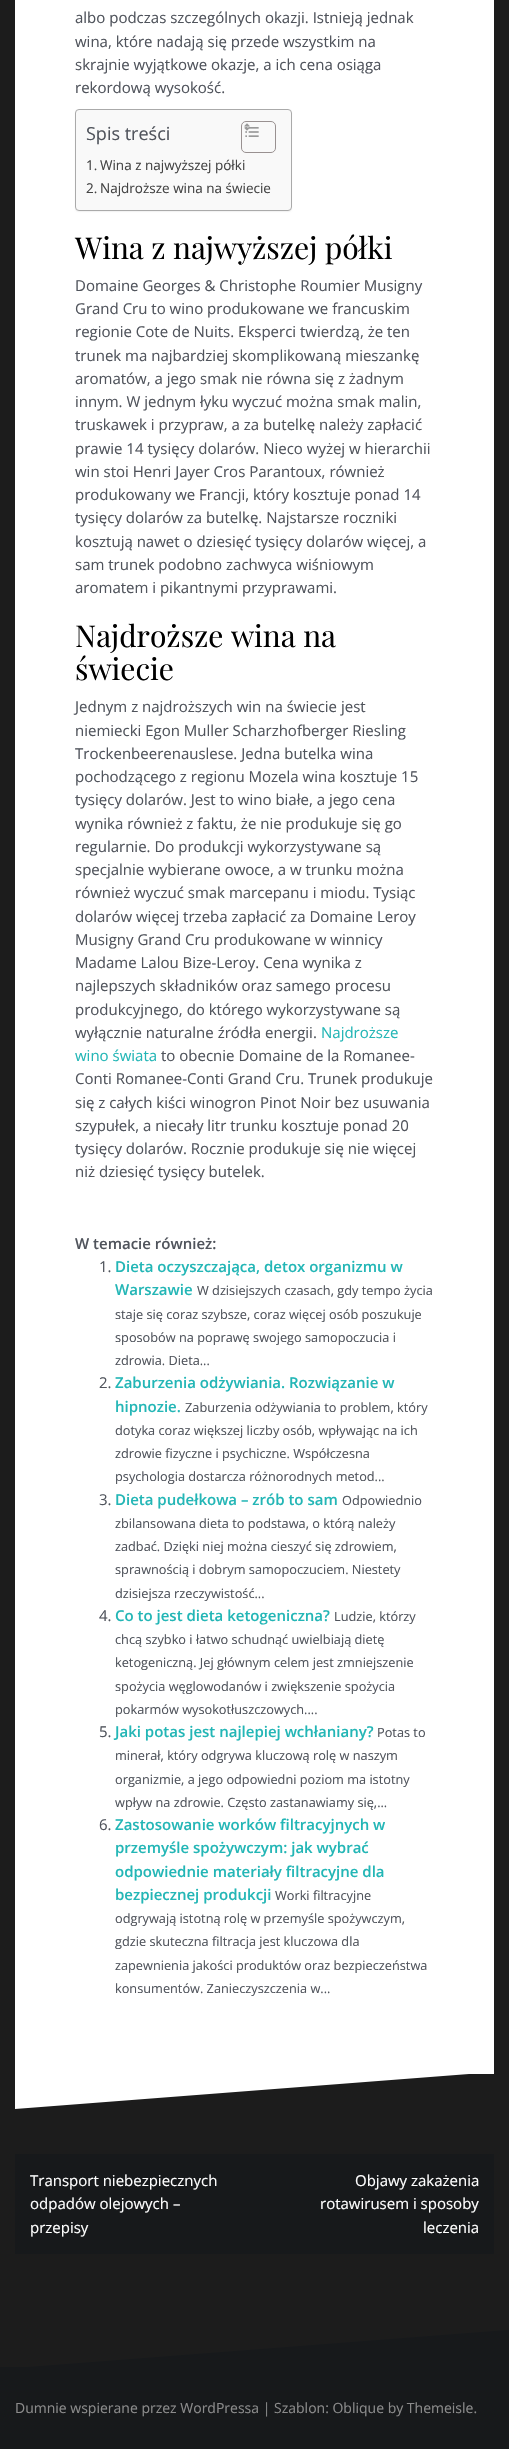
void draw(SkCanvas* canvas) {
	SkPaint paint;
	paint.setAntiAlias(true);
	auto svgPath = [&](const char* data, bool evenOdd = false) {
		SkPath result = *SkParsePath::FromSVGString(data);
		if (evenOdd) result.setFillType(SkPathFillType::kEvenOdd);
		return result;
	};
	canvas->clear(0xff1c1c1c);
	paint.setColor(0xffffffff);
	canvas->drawRect(SkRect::MakeXYWH(15, 0, 479, 2074), paint);
	SkFont f1(fontMgr->matchFamilyStyle("Open Sans", SkFontStyle::Normal()), 15);
	f1.setSubpixel(true);
	paint.setColor(0xff50545c);
	canvas->drawString("albo podczas szczególnych okazji. Istnieją jednak", 75, 23, f1, paint);
	canvas->drawString("wina, które nadają się przede wszystkim na", 75, 47, f1, paint);
	canvas->drawString("skrajnie wyjątkowe okazje, a ich cena osiąga", 75, 70, f1, paint);
	canvas->drawString("rekordową wysokość.", 75, 93, f1, paint);
	paint.setColor(0x0d000000);
	paint.setMaskFilter(SkMaskFilter::MakeBlur(kNormal_SkBlurStyle, 0.5));
	canvas->drawRoundRect(SkRect::MakeXYWH(75, 110, 217, 102), 4, 4, paint);
	paint.setMaskFilter(nullptr);
	paint.setColor(0xfff9f9f9);
	canvas->drawRoundRect(SkRect::MakeXYWH(75.5, 109.5, 216, 101), 3.5, 3.5, paint);
	paint.setStroke(true);
	paint.setStrokeWidth(1);
	paint.setColor(0xffaaaaaa);
	canvas->drawRoundRect(SkRect::MakeXYWH(75.5, 109.5, 216, 101), 3.5, 3.5, paint);
	SkFont f2(fontMgr->matchFamilyStyle("Open Sans", SkFontStyle::Normal()), 18);
	f2.setSubpixel(true);
	paint.setStroke(false);
	paint.setColor(0xff50545c);
	canvas->drawString("Spis treści", 86, 140, f2, paint);
	paint.setStroke(true);
	paint.setColor(0xff999191);
	canvas->drawRoundRect(SkRect::MakeXYWH(241.5, 121.5, 34, 31), 4.5, 4.5, paint);
	canvas->drawImageRect(SkImages::DeferredFromEncodedData(SkData::MakeFromFileName("img2.png")), SkRect::MakeXYWH(245, 127, 14, 10), SkSamplingOptions());
	canvas->drawImageRect(SkImages::DeferredFromEncodedData(SkData::MakeFromFileName("img1.png")), SkRect::MakeXYWH(244, 123, 6, 8), SkSamplingOptions());
	SkFont f3(fontMgr->matchFamilyStyle("Open Sans", SkFontStyle::Normal()), 13.5);
	f3.setSubpixel(true);
	paint.setStroke(false);
	paint.setColor(0xff444444);
	canvas->drawString("1.", 86, 170, f3, paint);
	canvas->drawString("Wina z najwyższej półki", 100, 170, f3, paint);
	canvas->drawString("2.", 86, 193, f3, paint);
	canvas->drawString("Najdroższe wina na świecie", 100, 193, f3, paint);
	SkFont f4(fontMgr->matchFamilyStyle("Playfair Display", SkFontStyle::Normal()), 30);
	f4.setSubpixel(true);
	paint.setColor(0xff000000);
	canvas->drawString("Wina z najwyższej półki", 75, 259, f4, paint);
	paint.setColor(0xff50545c);
	canvas->drawString("Domaine Georges & Christophe Roumier Musigny", 75, 291, f1, paint);
	canvas->drawString("Grand Cru to wino produkowane we francuskim", 75, 314, f1, paint);
	canvas->drawString("regionie Cote de Nuits. Eksperci twierdzą, że ten", 75, 337, f1, paint);
	canvas->drawString("trunek ma najbardziej skomplikowaną mieszankę", 75, 361, f1, paint);
	canvas->drawString("aromatów, a jego smak nie równa się z żadnym", 75, 384, f1, paint);
	canvas->drawString("innym. W jednym łyku wyczuć można smak malin,", 75, 407, f1, paint);
	canvas->drawString("truskawek i przypraw, a za butelkę należy zapłacić", 75, 430, f1, paint);
	canvas->drawString("prawie 14 tysięcy dolarów. Nieco wyżej w hierarchii", 75, 454, f1, paint);
	canvas->drawString("win stoi Henri Jayer Cros Parantoux, również", 75, 477, f1, paint);
	canvas->drawString("produkowany we Francji, który kosztuje ponad 14", 75, 500, f1, paint);
	canvas->drawString("tysięcy dolarów za butelkę. Najstarsze roczniki", 75, 523, f1, paint);
	canvas->drawString("kosztują nawet o dziesięć tysięcy dolarów więcej, a", 75, 547, f1, paint);
	canvas->drawString("sam trunek podobno zachwyca wiśniowym", 75, 570, f1, paint);
	canvas->drawString("aromatem i pikantnymi przyprawami.", 75, 593, f1, paint);
	paint.setColor(0xff000000);
	canvas->drawString("Najdroższe wina na", 75, 647, f4, paint);
	canvas->drawString("świecie", 75, 680, f4, paint);
	paint.setColor(0xff50545c);
	canvas->drawString("Jednym z najdroższych win na świecie jest", 75, 712, f1, paint);
	canvas->drawString("niemiecki Egon Muller Scharzhofberger Riesling", 75, 736, f1, paint);
	canvas->drawString("Trockenbeerenauslese. Jedna butelka wina", 75, 759, f1, paint);
	canvas->drawString("pochodzącego z regionu Mozela wina kosztuje 15", 75, 782, f1, paint);
	canvas->drawString("tysięcy dolarów. Jest to wino białe, a jego cena", 75, 805, f1, paint);
	canvas->drawString("wynika również z faktu, że nie produkuje się go", 75, 829, f1, paint);
	canvas->drawString("regularnie. Do produkcji wykorzystywane są", 75, 852, f1, paint);
	canvas->drawString("specjalnie wybierane owoce, a w trunku można", 75, 875, f1, paint);
	canvas->drawString("również wyczuć smak marcepanu i miodu. Tysiąc", 75, 898, f1, paint);
	canvas->drawString("dolarów więcej trzeba zapłacić za Domaine Leroy", 75, 922, f1, paint);
	canvas->drawString("Musigny Grand Cru produkowane w winnicy", 75, 945, f1, paint);
	canvas->drawString("Madame Lalou Bize-Leroy. Cena wynika z", 75, 968, f1, paint);
	canvas->drawString("najlepszych składników oraz samego procesu", 75, 991, f1, paint);
	canvas->drawString("produkcyjnego, do którego wykorzystywane są", 75, 1015, f1, paint);
	canvas->drawString("wyłącznie naturalne źródła energii.", 75, 1038, f1, paint);
	paint.setColor(0xff23b6b6);
	canvas->drawString("Najdroższe", 321, 1038, f1, paint);
	canvas->drawString("wino świata", 75, 1061, f1, paint);
	paint.setColor(0xff50545c);
	canvas->drawString("to obecnie Domaine de la Romanee-", 161, 1061, f1, paint);
	canvas->drawString("Conti Romanee-Conti Grand Cru. Trunek produkuje", 75, 1084, f1, paint);
	canvas->drawString("się z całych kiści winogron Pinot Noir bez usuwania", 75, 1108, f1, paint);
	canvas->drawString("szypułek, a niecały litr trunku kosztuje ponad 20", 75, 1131, f1, paint);
	canvas->drawString("tysięcy dolarów. Rocznie produkuje się nie więcej", 75, 1154, f1, paint);
	canvas->drawString("niż dziesięć tysięcy butelek.", 75, 1177, f1, paint);
	SkFont f5(fontMgr->matchFamilyStyle("Open Sans", SkFontStyle(600, SkFontStyle::kNormal_Width, SkFontStyle::kUpright_Slant)), 15);
	f5.setSubpixel(true);
	canvas->drawString("W temacie również:", 75, 1249, f5, paint);
	canvas->drawString("1.", 99, 1272, f1, paint);
	paint.setColor(0xff23b6b6);
	canvas->drawString("Dieta oczyszczająca, detox organizmu w", 115, 1272, f5, paint);
	canvas->drawString("Warszawie", 115, 1295, f5, paint);
	SkFont f6(fontMgr->matchFamilyStyle("Open Sans", SkFontStyle::Normal()), 12.75);
	f6.setSubpixel(true);
	paint.setColor(0xff50545c);
	canvas->drawString("W dzisiejszych czasach, gdy tempo życia", 197, 1295, f6, paint);
	canvas->drawString("staje się coraz szybsze, coraz więcej osób poszukuje", 115, 1319, f6, paint);
	canvas->drawString("sposobów na poprawę swojego samopoczucia i", 115, 1342, f6, paint);
	canvas->drawString("zdrowia. Dieta...", 115, 1365, f6, paint);
	canvas->drawString("2.", 99, 1388, f1, paint);
	paint.setColor(0xff23b6b6);
	canvas->drawString("Zaburzenia odżywiania. Rozwiązanie w", 115, 1388, f5, paint);
	canvas->drawString("hipnozie.", 115, 1412, f5, paint);
	paint.setColor(0xff50545c);
	canvas->drawString("Zaburzenia odżywiania to problem, który", 185, 1412, f6, paint);
	canvas->drawString("dotyka coraz większej liczby osób, wpływając na ich", 115, 1435, f6, paint);
	canvas->drawString("zdrowie fizyczne i psychiczne. Współczesna", 115, 1458, f6, paint);
	canvas->drawString("psychologia dostarcza różnorodnych metod...", 115, 1481, f6, paint);
	canvas->drawString("3.", 99, 1505, f1, paint);
	paint.setColor(0xff23b6b6);
	canvas->drawString("Dieta pudełkowa – zrób to sam", 115, 1505, f5, paint);
	paint.setColor(0xff50545c);
	canvas->drawString("Odpowiednio", 342, 1505, f6, paint);
	canvas->drawString("zbilansowana dieta to podstawa, o którą należy", 115, 1528, f6, paint);
	canvas->drawString("zadbać. Dzięki niej można cieszyć się zdrowiem,", 115, 1551, f6, paint);
	canvas->drawString("sprawnością i dobrym samopoczuciem. Niestety", 115, 1574, f6, paint);
	canvas->drawString("dzisiejsza rzeczywistość...", 115, 1598, f6, paint);
	canvas->drawString("4.", 99, 1621, f1, paint);
	paint.setColor(0xff23b6b6);
	canvas->drawString("Co to jest dieta ketogeniczna?", 115, 1621, f5, paint);
	paint.setColor(0xff50545c);
	canvas->drawString("Ludzie, którzy", 334, 1621, f6, paint);
	canvas->drawString("chcą szybko i łatwo schudnąć uwielbiają dietę", 115, 1644, f6, paint);
	canvas->drawString("ketogeniczną. Jej głównym celem jest zmniejszenie", 115, 1667, f6, paint);
	canvas->drawString("spożycia węglowodanów i zwiększenie spożycia", 115, 1691, f6, paint);
	canvas->drawString("pokarmów wysokotłuszczowych....", 115, 1714, f6, paint);
	canvas->drawString("5.", 99, 1737, f1, paint);
	paint.setColor(0xff23b6b6);
	canvas->drawString("Jaki potas jest najlepiej wchłaniany?", 115, 1737, f5, paint);
	paint.setColor(0xff50545c);
	canvas->drawString("Potas to", 377, 1737, f6, paint);
	canvas->drawString("minerał, który odgrywa kluczową rolę w naszym", 115, 1760, f6, paint);
	canvas->drawString("organizmie, a jego odpowiedni poziom ma istotny", 115, 1784, f6, paint);
	canvas->drawString("wpływ na zdrowie. Często zastanawiamy się,...", 115, 1807, f6, paint);
	canvas->drawString("6.", 99, 1830, f1, paint);
	paint.setColor(0xff23b6b6);
	canvas->drawString("Zastosowanie worków filtracyjnych w", 115, 1830, f5, paint);
	canvas->drawString("przemyśle spożywczym: jak wybrać", 115, 1853, f5, paint);
	canvas->drawString("odpowiednie materiały filtracyjne dla", 115, 1877, f5, paint);
	canvas->drawString("bezpiecznej produkcji", 115, 1900, f5, paint);
	paint.setColor(0xff50545c);
	canvas->drawString("Worki filtracyjne", 275, 1900, f6, paint);
	canvas->drawString("odgrywają istotną rolę w przemyśle spożywczym,", 115, 1923, f6, paint);
	canvas->drawString("gdzie skuteczna filtracja jest kluczowa dla", 115, 1946, f6, paint);
	canvas->drawString("zapewnienia jakości produktów oraz bezpieczeństwa", 115, 1970, f6, paint);
	canvas->drawString("konsumentów. Zanieczyszczenia w...", 115, 1993, f6, paint);
	paint.setColor(0xffffffff);
	canvas->drawPath(svgPath("M15 2109V2072H495"), paint);
	paint.setColor(0xff17191b);
	canvas->drawRect(SkRect::MakeXYWH(15, 2154, 479, 100), paint);
	paint.setColor(0xffffffff);
	canvas->drawString("Transport niebezpiecznych", 30, 2186, f1, paint);
	canvas->drawString("odpadów olejowych –", 30, 2209, f1, paint);
	canvas->drawString("przepisy", 30, 2233, f1, paint);
	canvas->drawString("Objawy zakażenia", 355, 2186, f1, paint);
	canvas->drawString("rotawirusem i sposoby", 320, 2209, f1, paint);
	canvas->drawString("leczenia", 423, 2233, f1, paint);
	paint.setColor(0xff17191b);
	canvas->drawRect(SkRect::MakeXYWH(0, 2367, 509, 82), paint);
	canvas->drawPath(svgPath("M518 2329V2369H0"), paint);
	SkFont f7(fontMgr->matchFamilyStyle("Open Sans", SkFontStyle::Normal()), 14);
	f7.setSubpixel(true);
	paint.setColor(0xff8b8b8b);
	canvas->drawString("Dumnie wspierane przez WordPressa | Szablon: Oblique by Themeisle.", 15, 2413, f7, paint);
}
